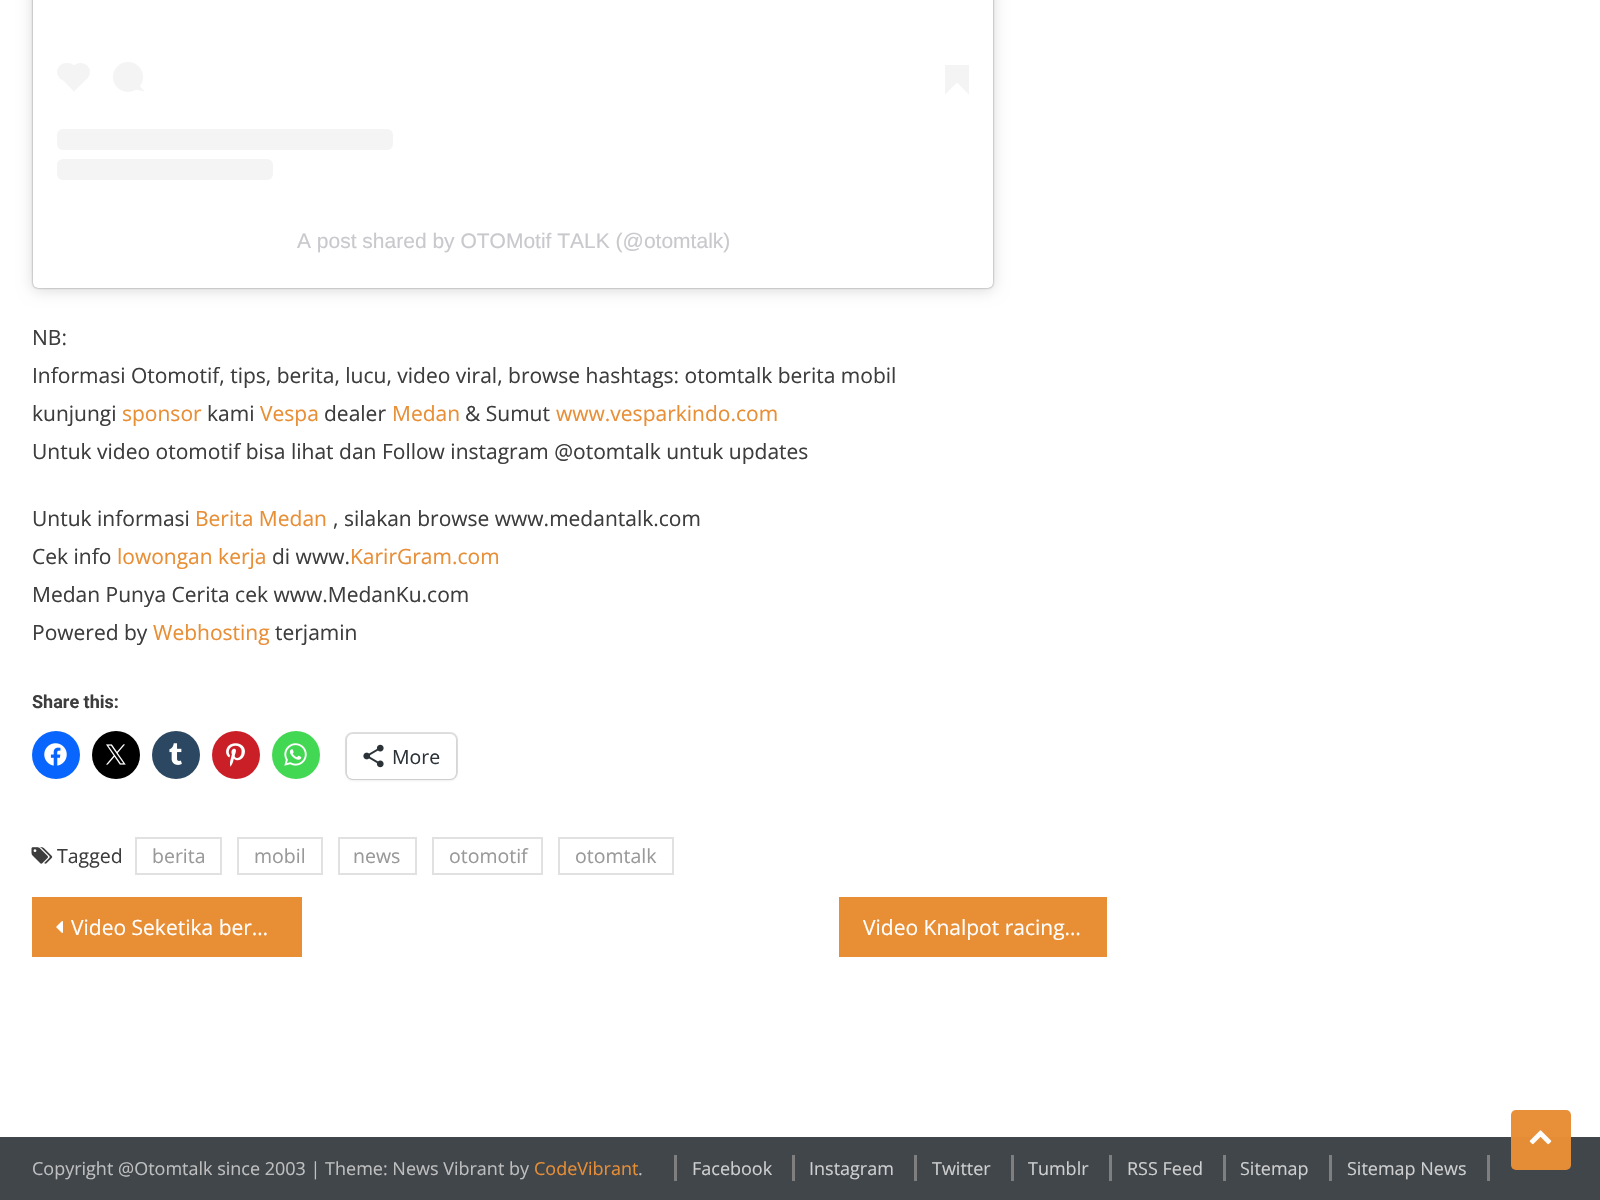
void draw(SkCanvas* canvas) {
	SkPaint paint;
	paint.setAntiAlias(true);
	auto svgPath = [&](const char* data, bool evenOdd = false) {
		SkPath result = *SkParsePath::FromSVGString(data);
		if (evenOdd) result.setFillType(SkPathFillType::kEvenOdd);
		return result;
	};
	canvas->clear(0xffffffff);
	paint.setColor(0x26000000);
	paint.setMaskFilter(SkMaskFilter::MakeBlur(kNormal_SkBlurStyle, 7.5));
	canvas->drawRoundRect(SkRect::MakeXYWH(33, -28, 960, 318), 5, 5, paint);
	paint.setMaskFilter(nullptr);
	paint.setColor(0x80000000);
	paint.setMaskFilter(SkMaskFilter::MakeBlur(kNormal_SkBlurStyle, 1));
	canvas->drawRoundRect(SkRect::MakeXYWH(33, -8, 960, 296), 5, 5, paint);
	paint.setMaskFilter(nullptr);
	paint.setColor(0xffffffff);
	canvas->drawRoundRect(SkRect::MakeXYWH(33, -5, 960, 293), 5, 5, paint);
	paint.setColor(0xfff4f4f4);
	canvas->drawRoundRect(SkRect::MakeXYWH(57, 63, 20, 18), 9, 9, paint);
	canvas->drawPath(svgPath("M61 78L74 65L87.5 78L74 91.5Z"), paint);
	canvas->drawRoundRect(SkRect::MakeXYWH(71, 63, 19, 18), 9, 9, paint);
	canvas->drawCircle(128, 77, 15, paint);
	canvas->drawPath(svgPath("M135.5 89.5L138.5 84.5L144.5 91.5Z"), paint);
	canvas->drawPath(svgPath("M945 82.5H957L945 94.5Z"), paint);
	canvas->drawRect(SkRect::MakeXYWH(945, 65, 24, 18), paint);
	canvas->drawPath(svgPath("M957 82.5H969V94.5Z"), paint);
	canvas->drawRoundRect(SkRect::MakeXYWH(57, 129, 336, 21), 6, 6, paint);
	canvas->drawRoundRect(SkRect::MakeXYWH(57, 159, 216, 21), 6, 6, paint);
	SkFont f1(fontMgr->matchFamilyStyle("Liberation Sans", SkFontStyle::Normal()), 21);
	f1.setSubpixel(true);
	paint.setColor(0xffc9c8cd);
	canvas->drawString("A post shared by OTOMotif TALK (@otomtalk)", 297, 248, f1, paint);
	SkFont f2(fontMgr->matchFamilyStyle("Open Sans", SkFontStyle::Normal()), 21);
	f2.setSubpixel(true);
	paint.setColor(0xff3d3d3d);
	canvas->drawString("NB:", 32, 345, f2, paint);
	canvas->drawString("Informasi Otomotif, tips, berita, lucu, video viral, browse hashtags: otomtalk berita mobil", 32, 383, f2, paint);
	canvas->drawString("kunjungi", 32, 421, f2, paint);
	paint.setColor(0xffe88e35);
	canvas->drawString("sponsor", 122, 421, f2, paint);
	paint.setColor(0xff3d3d3d);
	canvas->drawString("kami", 207, 421, f2, paint);
	paint.setColor(0xffe88e35);
	canvas->drawString("Vespa", 260, 421, f2, paint);
	paint.setColor(0xff3d3d3d);
	canvas->drawString("dealer", 324, 421, f2, paint);
	paint.setColor(0xffe88e35);
	canvas->drawString("Medan", 392, 421, f2, paint);
	paint.setColor(0xff3d3d3d);
	canvas->drawString("& Sumut", 465, 421, f2, paint);
	paint.setColor(0xffe88e35);
	canvas->drawString("www.vesparkindo.com", 556, 421, f2, paint);
	paint.setColor(0xff3d3d3d);
	canvas->drawString("Untuk video otomotif bisa lihat dan Follow instagram @otomtalk untuk updates", 32, 459, f2, paint);
	canvas->drawString("Untuk informasi", 32, 526, f2, paint);
	paint.setColor(0xffe88e35);
	canvas->drawString("Berita Medan", 195, 526, f2, paint);
	paint.setColor(0xff3d3d3d);
	canvas->drawString(", silakan browse www.medantalk.com", 333, 526, f2, paint);
	canvas->drawString("Cek info", 32, 564, f2, paint);
	paint.setColor(0xffe88e35);
	canvas->drawString("lowongan kerja", 117, 564, f2, paint);
	paint.setColor(0xff3d3d3d);
	canvas->drawString("di www.", 272, 564, f2, paint);
	paint.setColor(0xffe88e35);
	canvas->drawString("KarirGram.com", 350, 564, f2, paint);
	paint.setColor(0xff3d3d3d);
	canvas->drawString("Medan Punya Cerita cek www.MedanKu.com", 32, 602, f2, paint);
	canvas->drawString("Powered by", 32, 640, f2, paint);
	paint.setColor(0xffe88e35);
	canvas->drawString("Webhosting", 153, 640, f2, paint);
	paint.setColor(0xff3d3d3d);
	canvas->drawString("terjamin", 275, 640, f2, paint);
	SkFont f3(fontMgr->matchFamilyStyle("Roboto", SkFontStyle::Bold()), 18);
	f3.setSubpixel(true);
	canvas->drawString("Share this:", 32, 708, f3, paint);
	paint.setColor(0xff0866ff);
	canvas->drawCircle(56, 755, 24, paint);
	canvas->drawImageRect(SkImages::DeferredFromEncodedData(SkData::MakeFromFileName("img1.png")), SkRect::MakeXYWH(44, 743, 23, 23), SkSamplingOptions());
	paint.setColor(0xff000000);
	canvas->drawCircle(116, 755, 24, paint);
	canvas->drawImageRect(SkImages::DeferredFromEncodedData(SkData::MakeFromFileName("img2.png")), SkRect::MakeXYWH(106, 744, 20, 21), SkSamplingOptions());
	paint.setColor(0xff2c4762);
	canvas->drawCircle(176, 755, 24, paint);
	canvas->drawImageRect(SkImages::DeferredFromEncodedData(SkData::MakeFromFileName("img3.png")), SkRect::MakeXYWH(169, 743, 13, 22), SkSamplingOptions());
	paint.setColor(0xffca1f27);
	canvas->drawCircle(236, 755, 24, paint);
	canvas->drawImageRect(SkImages::DeferredFromEncodedData(SkData::MakeFromFileName("img4.png")), SkRect::MakeXYWH(226, 743, 19, 24), SkSamplingOptions());
	paint.setColor(0xff43d854);
	canvas->drawCircle(296, 755, 24, paint);
	canvas->drawImageRect(SkImages::DeferredFromEncodedData(SkData::MakeFromFileName("img5.png")), SkRect::MakeXYWH(284, 743, 23, 23), SkSamplingOptions());
	paint.setStroke(true);
	paint.setStrokeWidth(2);
	paint.setColor(0xffe0e0e0);
	canvas->drawRoundRect(SkRect::MakeXYWH(346, 733, 111, 46), 7, 7, paint);
	paint.setStroke(false);
	paint.setColor(0x1f000000);
	paint.setMaskFilter(SkMaskFilter::MakeBlur(kNormal_SkBlurStyle, 1.5));
	canvas->drawRoundRect(SkRect::MakeXYWH(347, 735, 109, 45), 6, 6, paint);
	paint.setMaskFilter(nullptr);
	paint.setColor(0xffffffff);
	canvas->drawRoundRect(SkRect::MakeXYWH(347, 734, 109, 45), 6, 6, paint);
	canvas->drawImageRect(SkImages::DeferredFromEncodedData(SkData::MakeFromFileName("img6.png")), SkRect::MakeXYWH(363, 744, 21, 24), SkSamplingOptions());
	SkFont f4(fontMgr->matchFamilyStyle("Open Sans", SkFontStyle::Normal()), 19.5);
	f4.setSubpixel(true);
	paint.setColor(0xff2c3338);
	canvas->drawString("More", 392, 764, f4, paint);
	canvas->drawImageRect(SkImages::DeferredFromEncodedData(SkData::MakeFromFileName("img7.png")), SkRect::MakeXYWH(31, 847, 22, 17), SkSamplingOptions());
	paint.setColor(0xff3d3d3d);
	canvas->drawString("Tagged", 57, 863, f4, paint);
	paint.setStroke(true);
	paint.setColor(0xffe1e1e1);
	canvas->drawRect(SkRect::MakeXYWH(136, 838, 85, 36), paint);
	paint.setStroke(false);
	paint.setColor(0xff999999);
	canvas->drawString("berita", 152, 863, f4, paint);
	paint.setStroke(true);
	paint.setColor(0xffe1e1e1);
	canvas->drawRect(SkRect::MakeXYWH(238, 838, 84, 36), paint);
	paint.setStroke(false);
	paint.setColor(0xff999999);
	canvas->drawString("mobil", 254, 863, f4, paint);
	paint.setStroke(true);
	paint.setColor(0xffe1e1e1);
	canvas->drawRect(SkRect::MakeXYWH(339, 838, 77, 36), paint);
	paint.setStroke(false);
	paint.setColor(0xff999999);
	canvas->drawString("news", 353, 863, f4, paint);
	paint.setStroke(true);
	paint.setColor(0xffe1e1e1);
	canvas->drawRect(SkRect::MakeXYWH(433, 838, 109, 36), paint);
	paint.setStroke(false);
	paint.setColor(0xff999999);
	canvas->drawString("otomotif", 449, 863, f4, paint);
	paint.setStroke(true);
	paint.setColor(0xffe1e1e1);
	canvas->drawRect(SkRect::MakeXYWH(559, 838, 114, 36), paint);
	paint.setStroke(false);
	paint.setColor(0xff999999);
	canvas->drawString("otomtalk", 575, 863, f4, paint);
	paint.setColor(0xffe88e35);
	canvas->drawRect(SkRect::MakeXYWH(32, 897, 270, 60), paint);
	canvas->drawImageRect(SkImages::DeferredFromEncodedData(SkData::MakeFromFileName("img8.png")), SkRect::MakeXYWH(56, 921, 7, 12), SkSamplingOptions());
	paint.setColor(0xffffffff);
	canvas->drawString("Video Seketika ber…", 71, 935, f2, paint);
	paint.setColor(0xffe88e35);
	canvas->drawRect(SkRect::MakeXYWH(839, 897, 268, 60), paint);
	paint.setColor(0xffffffff);
	canvas->drawString("Video Knalpot racing…", 863, 935, f2, paint);
	paint.setColor(0xff41464b);
	canvas->drawRect(SkRect::MakeXYWH(0, 1137, 1600, 63), paint);
	SkFont f5(fontMgr->matchFamilyStyle("Open Sans", SkFontStyle::Normal()), 18);
	f5.setSubpixel(true);
	paint.setColor(0xffbfbfbf);
	canvas->drawString("Copyright @Otomtalk since 2003 | Theme: News Vibrant by", 32, 1175, f5, paint);
	paint.setColor(0xffe88e35);
	canvas->drawString("CodeVibrant", 534, 1175, f5, paint);
	paint.setColor(0xffbfbfbf);
	canvas->drawString(".", 638, 1175, f5, paint);
	paint.setColor(0xffcfcfcf);
	canvas->drawString("Facebook", 692, 1175, f5, paint);
	paint.setColor(0xff7f7f7f);
	canvas->drawRect(SkRect::MakeXYWH(674, 1155, 3, 26), paint);
	paint.setColor(0xffcfcfcf);
	canvas->drawString("Instagram", 809, 1175, f5, paint);
	paint.setColor(0xff7f7f7f);
	canvas->drawRect(SkRect::MakeXYWH(792, 1155, 3, 26), paint);
	paint.setColor(0xffcfcfcf);
	canvas->drawString("Twitter", 932, 1175, f5, paint);
	paint.setColor(0xff7f7f7f);
	canvas->drawRect(SkRect::MakeXYWH(914, 1155, 3, 26), paint);
	paint.setColor(0xffcfcfcf);
	canvas->drawString("Tumblr", 1028, 1175, f5, paint);
	paint.setColor(0xff7f7f7f);
	canvas->drawRect(SkRect::MakeXYWH(1011, 1155, 3, 26), paint);
	paint.setColor(0xffcfcfcf);
	canvas->drawString("RSS Feed", 1127, 1175, f5, paint);
	paint.setColor(0xff7f7f7f);
	canvas->drawRect(SkRect::MakeXYWH(1109, 1155, 3, 26), paint);
	paint.setColor(0xffcfcfcf);
	canvas->drawString("Sitemap", 1240, 1175, f5, paint);
	paint.setColor(0xff7f7f7f);
	canvas->drawRect(SkRect::MakeXYWH(1223, 1155, 3, 26), paint);
	paint.setColor(0xffcfcfcf);
	canvas->drawString("Sitemap News", 1347, 1175, f5, paint);
	paint.setColor(0xff7f7f7f);
	canvas->drawRect(SkRect::MakeXYWH(1329, 1155, 3, 26), paint);
	canvas->drawRect(SkRect::MakeXYWH(1487, 1155, 3, 26), paint);
	paint.setColor(0xfae88e35);
	canvas->drawRoundRect(SkRect::MakeXYWH(1511, 1110, 60, 60), 5, 5, paint);
	canvas->drawImageRect(SkImages::DeferredFromEncodedData(SkData::MakeFromFileName("img9.png")), SkRect::MakeXYWH(1529, 1130, 23, 15), SkSamplingOptions());
}
